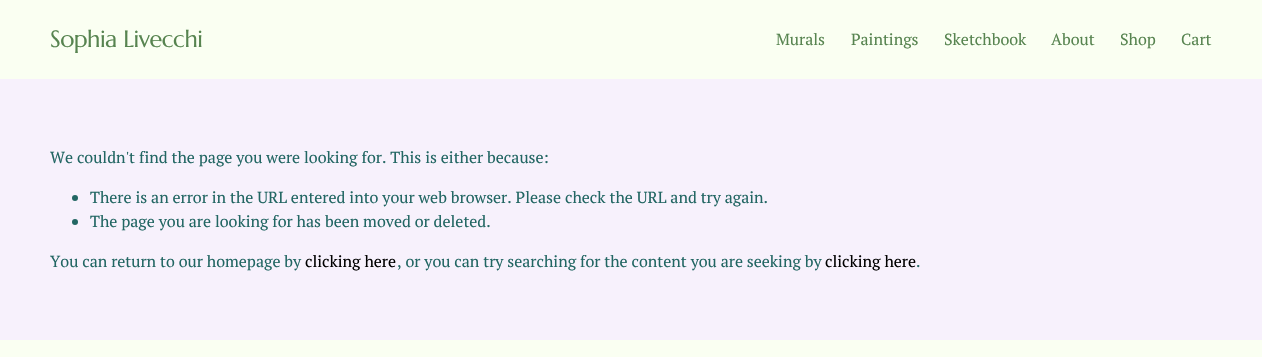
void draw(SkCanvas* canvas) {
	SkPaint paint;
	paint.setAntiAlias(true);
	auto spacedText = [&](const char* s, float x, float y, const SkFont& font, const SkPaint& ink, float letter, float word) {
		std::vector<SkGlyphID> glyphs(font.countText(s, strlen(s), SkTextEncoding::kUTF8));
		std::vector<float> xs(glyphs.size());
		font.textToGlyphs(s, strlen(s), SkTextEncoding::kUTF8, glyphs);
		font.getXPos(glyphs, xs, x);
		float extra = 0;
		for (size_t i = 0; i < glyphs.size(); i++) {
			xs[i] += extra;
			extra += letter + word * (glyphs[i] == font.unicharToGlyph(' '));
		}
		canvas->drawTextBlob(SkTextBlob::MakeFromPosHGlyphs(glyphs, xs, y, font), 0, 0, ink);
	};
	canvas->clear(0xfff7f1fc);
	paint.setColor(0xfffafff2);
	canvas->drawRect(SkRect::MakeXYWH(0, 0, 1262, 79), paint);
	SkFont f1(fontMgr->matchFamilyStyle("Marcellus", SkFontStyle::Normal()), 23.5);
	f1.setSubpixel(true);
	paint.setColor(0xff578450);
	spacedText("Sophia Livecchi", 50, 47, f1, paint, -0.5, 0);
	SkFont f2(fontMgr->matchFamilyStyle("PT Serif", SkFontStyle::Normal()), 16);
	f2.setSubpixel(true);
	canvas->drawString("Murals", 776, 45, f2, paint);
	canvas->drawString("Paintings", 851, 45, f2, paint);
	canvas->drawString("Sketchbook", 944, 45, f2, paint);
	canvas->drawString("About", 1051, 45, f2, paint);
	canvas->drawString("Shop", 1120, 45, f2, paint);
	canvas->drawString("Cart", 1181, 45, f2, paint);
	paint.setColor(0xff226663);
	canvas->drawString("We couldn't find the page you were looking for. This is either because:", 50, 163, f2, paint);
	canvas->drawCircle(75, 198, 3, paint);
	canvas->drawString("There is an error in the URL entered into your web browser. Please check the URL and try again.", 90, 203, f2, paint);
	canvas->drawCircle(75, 222, 3, paint);
	canvas->drawString("The page you are looking for has been moved or deleted.", 90, 227, f2, paint);
	canvas->drawString("You can return to our homepage by", 50, 267, f2, paint);
	paint.setColor(0xff000000);
	canvas->drawString("clicking here", 305, 267, f2, paint);
	paint.setColor(0xff226663);
	canvas->drawString(", or you can try searching for the content you are seeking by", 397, 267, f2, paint);
	paint.setColor(0xff000000);
	canvas->drawString("clicking here", 825, 267, f2, paint);
	paint.setColor(0xff226663);
	canvas->drawString(".", 916, 267, f2, paint);
	paint.setColor(0xfffafff2);
	canvas->drawRect(SkRect::MakeXYWH(0, 340, 1262, 17), paint);
}
